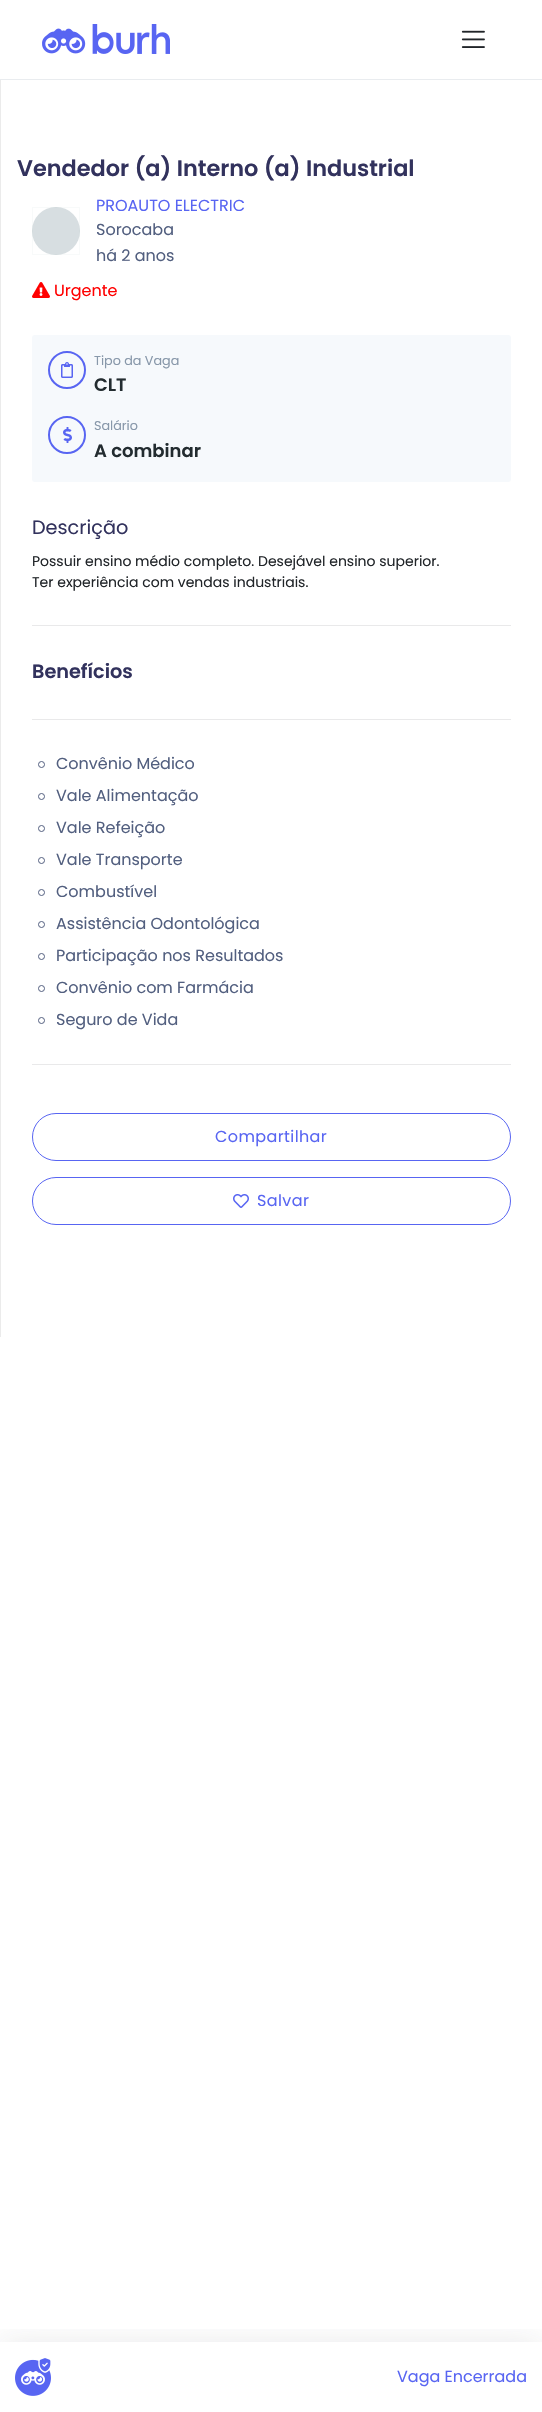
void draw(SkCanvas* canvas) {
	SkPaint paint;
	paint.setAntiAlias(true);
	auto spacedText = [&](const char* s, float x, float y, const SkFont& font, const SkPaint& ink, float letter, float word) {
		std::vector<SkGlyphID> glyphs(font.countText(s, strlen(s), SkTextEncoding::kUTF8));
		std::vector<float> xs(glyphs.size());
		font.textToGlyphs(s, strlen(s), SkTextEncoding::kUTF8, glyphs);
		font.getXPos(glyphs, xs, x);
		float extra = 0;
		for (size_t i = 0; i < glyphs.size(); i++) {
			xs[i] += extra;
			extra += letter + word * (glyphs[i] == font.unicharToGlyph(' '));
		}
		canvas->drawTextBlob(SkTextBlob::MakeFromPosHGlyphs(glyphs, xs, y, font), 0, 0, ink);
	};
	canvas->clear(0xffffffff);
	paint.setColor(0xffe9ecef);
	canvas->drawRect(SkRect::MakeXYWH(0, 79, 542, 1), paint);
	canvas->drawImageRect(SkImages::DeferredFromEncodedData(SkData::MakeFromFileName("img1.png")), SkRect::MakeXYWH(42, 24, 128, 30), SkSamplingOptions());
	canvas->drawImageRect(SkImages::DeferredFromEncodedData(SkData::MakeFromFileName("img2.png")), SkRect::MakeXYWH(461, 30, 24, 18), SkSamplingOptions());
	paint.setColor(0xffebebeb);
	canvas->drawRect(SkRect::MakeXYWH(0, 80, 1, 1257), paint);
	SkFont f1(fontMgr->matchFamilyStyle("Poppins", SkFontStyle(600, SkFontStyle::kNormal_Width, SkFontStyle::kUpright_Slant)), 22.4);
	f1.setSubpixel(true);
	paint.setColor(0xff32325d);
	canvas->drawString("Vendedor (a) Interno (a) Industrial", 17, 176, f1, paint);
	paint.setColor(0xffd7dee1);
	canvas->drawCircle(56, 231, 24, paint);
	paint.setStroke(true);
	paint.setStrokeWidth(1);
	paint.setColor(0x0d7e96a1);
	canvas->drawRect(SkRect::MakeXYWH(32.5, 207.5, 47, 47), paint);
	SkFont f2(fontMgr->matchFamilyStyle("Poppins", SkFontStyle::Normal()), 16);
	f2.setSubpixel(true);
	paint.setStroke(false);
	paint.setColor(0xff5865f2);
	canvas->drawString("PROAUTO ELECTRIC", 96, 211, f2, paint);
	paint.setColor(0xff525f7f);
	canvas->drawString("Sorocaba", 96, 235, f2, paint);
	canvas->drawString("há 2 anos", 96, 261, f2, paint);
	canvas->drawImageRect(SkImages::DeferredFromEncodedData(SkData::MakeFromFileName("img3.png")), SkRect::MakeXYWH(32, 282, 18, 16), SkSamplingOptions());
	paint.setColor(0xffff0000);
	canvas->drawString("Urgente", 54, 296, f2, paint);
	paint.setColor(0xfff6f9fc);
	canvas->drawRoundRect(SkRect::MakeXYWH(32, 335, 479, 147), 3, 3, paint);
	paint.setStroke(true);
	paint.setStrokeWidth(2);
	paint.setColor(0xff5865f2);
	canvas->drawCircle(67, 370, 18, paint);
	canvas->drawImageRect(SkImages::DeferredFromEncodedData(SkData::MakeFromFileName("img4.png")), SkRect::MakeXYWH(61, 362, 12, 16), SkSamplingOptions());
	SkFont f3(fontMgr->matchFamilyStyle("Poppins", SkFontStyle::Normal()), 12.75);
	f3.setSubpixel(true);
	paint.setStroke(false);
	paint.setColor(0xff8898aa);
	canvas->drawString("Tipo da Vaga", 94, 365, f3, paint);
	SkFont f4(fontMgr->matchFamilyStyle("Poppins", SkFontStyle(600, SkFontStyle::kNormal_Width, SkFontStyle::kUpright_Slant)), 18);
	f4.setSubpixel(true);
	paint.setColor(0xff232c30);
	canvas->drawString("CLT", 94, 391, f4, paint);
	paint.setStroke(true);
	paint.setColor(0xff5865f2);
	canvas->drawCircle(67, 435, 18, paint);
	canvas->drawImageRect(SkImages::DeferredFromEncodedData(SkData::MakeFromFileName("img5.png")), SkRect::MakeXYWH(63, 427, 9, 16), SkSamplingOptions());
	paint.setStroke(false);
	paint.setColor(0xff8898aa);
	canvas->drawString("Salário", 94, 430, f3, paint);
	paint.setColor(0xff232c30);
	canvas->drawString("A combinar", 94, 457, f4, paint);
	SkFont f5(fontMgr->matchFamilyStyle("Poppins", SkFontStyle::Normal()), 19.25);
	f5.setSubpixel(true);
	paint.setColor(0xff32325d);
	canvas->drawString("Descrição", 32, 534, f5, paint);
	SkFont f6(fontMgr->matchFamilyStyle("Poppins", SkFontStyle::Normal()), 14);
	f6.setSubpixel(true);
	paint.setColor(0xff212529);
	canvas->drawString("Possuir ensino médio completo. Desejável ensino superior.", 32, 566, f6, paint);
	canvas->drawString("Ter experiência com vendas industriais.", 32, 587, f6, paint);
	paint.setColor(0xffe9e9ea);
	canvas->drawRect(SkRect::MakeXYWH(32, 625, 479, 1), paint);
	SkFont f7(fontMgr->matchFamilyStyle("Poppins", SkFontStyle(600, SkFontStyle::kNormal_Width, SkFontStyle::kUpright_Slant)), 19.25);
	f7.setSubpixel(true);
	paint.setColor(0xff32325d);
	canvas->drawString("Benefícios", 32, 678, f7, paint);
	paint.setColor(0xffe9e9ea);
	canvas->drawRect(SkRect::MakeXYWH(32, 719, 479, 1), paint);
	paint.setStroke(true);
	paint.setStrokeWidth(1);
	paint.setColor(0xff525f7f);
	canvas->drawCircle(41.5, 764.5, 3, paint);
	paint.setStroke(false);
	canvas->drawString("Convênio Médico", 56, 769, f2, paint);
	paint.setStroke(true);
	canvas->drawCircle(41.5, 796.5, 3, paint);
	paint.setStroke(false);
	canvas->drawString("Vale Alimentação", 56, 801, f2, paint);
	paint.setStroke(true);
	canvas->drawCircle(41.5, 828.5, 3, paint);
	paint.setStroke(false);
	canvas->drawString("Vale Refeição", 56, 833, f2, paint);
	paint.setStroke(true);
	canvas->drawCircle(41.5, 860.5, 3, paint);
	paint.setStroke(false);
	canvas->drawString("Vale Transporte", 56, 865, f2, paint);
	paint.setStroke(true);
	canvas->drawCircle(41.5, 892.5, 3, paint);
	paint.setStroke(false);
	canvas->drawString("Combustível", 56, 897, f2, paint);
	paint.setStroke(true);
	canvas->drawCircle(41.5, 924.5, 3, paint);
	paint.setStroke(false);
	canvas->drawString("Assistência Odontológica", 56, 929, f2, paint);
	paint.setStroke(true);
	canvas->drawCircle(41.5, 956.5, 3, paint);
	paint.setStroke(false);
	canvas->drawString("Participação nos Resultados", 56, 961, f2, paint);
	paint.setStroke(true);
	canvas->drawCircle(41.5, 988.5, 3, paint);
	paint.setStroke(false);
	canvas->drawString("Convênio com Farmácia", 56, 993, f2, paint);
	paint.setStroke(true);
	canvas->drawCircle(41.5, 1020.5, 3, paint);
	paint.setStroke(false);
	canvas->drawString("Seguro de Vida", 56, 1025, f2, paint);
	paint.setColor(0xffe9e9ea);
	canvas->drawRect(SkRect::MakeXYWH(32, 1064, 479, 1), paint);
	paint.setStroke(true);
	paint.setColor(0xff5865f2);
	canvas->drawRoundRect(SkRect::MakeXYWH(32.5, 1113.5, 478, 47), 23.5, 23.5, paint);
	paint.setStroke(false);
	spacedText("Compartilhar", 215, 1142, f2, paint, 0.4, 0);
	paint.setStroke(true);
	canvas->drawRoundRect(SkRect::MakeXYWH(32.5, 1177.5, 478, 47), 23.5, 23.5, paint);
	canvas->drawImageRect(SkImages::DeferredFromEncodedData(SkData::MakeFromFileName("img6.png")), SkRect::MakeXYWH(233, 1194, 16, 14), SkSamplingOptions());
	paint.setStroke(false);
	spacedText("Salvar", 257, 1206, f2, paint, 0.4, 0);
	canvas->save();
	canvas->clipRect(SkRect::MakeXYWH(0, 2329, 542, 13));
	paint.setColor(0x1a232c30);
	paint.setMaskFilter(SkMaskFilter::MakeBlur(kNormal_SkBlurStyle, 16));
	canvas->drawRect(SkRect::MakeXYWH(0, 2342, 542, 70), paint);
	paint.setMaskFilter(nullptr);
	canvas->restore();
	canvas->drawImageRect(SkImages::DeferredFromEncodedData(SkData::MakeFromFileName("img7.png")), SkRect::MakeXYWH(15, 2358, 36, 38), SkSamplingOptions());
	paint.setColor(0xff5865f2);
	canvas->drawString("Vaga Encerrada", 397, 2382, f2, paint);
}
